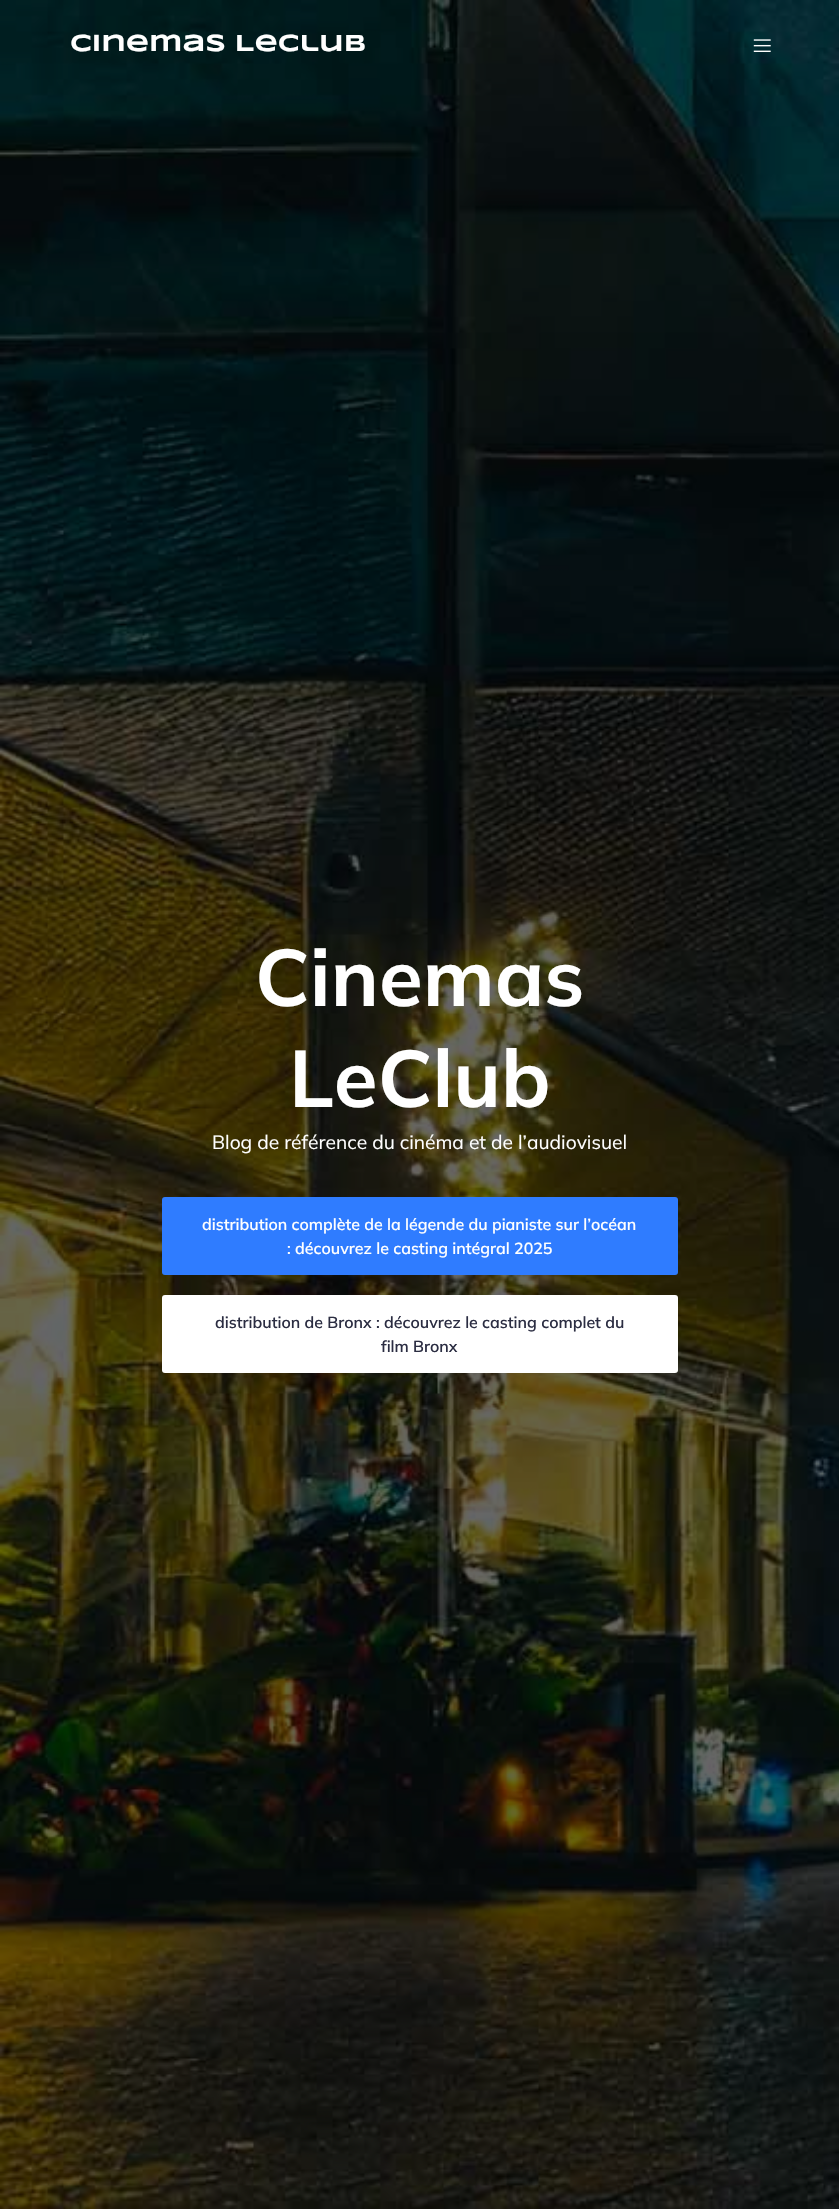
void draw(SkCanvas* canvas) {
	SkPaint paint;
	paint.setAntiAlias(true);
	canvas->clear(0xffffffff);
	canvas->drawImageRect(SkImages::DeferredFromEncodedData(SkData::MakeFromFileName("img2.png")), SkRect::MakeXYWH(0, 0, 839, 2209), SkSamplingOptions());
	SkFont f1(fontMgr->matchFamilyStyle("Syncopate", SkFontStyle::Bold()), 24);
	f1.setSubpixel(true);
	paint.setColor(0xffffffff);
	canvas->drawString("Cinemas LeClub", 70, 51, f1, paint);
	canvas->drawImageRect(SkImages::DeferredFromEncodedData(SkData::MakeFromFileName("img1.png")), SkRect::MakeXYWH(753, 39, 18, 13), SkSamplingOptions());
	SkFont f2(fontMgr->matchFamilyStyle("Mulish", SkFontStyle::Bold()), 80);
	f2.setSubpixel(true);
	canvas->drawString("Cinemas", 255, 1006, f2, paint);
	canvas->drawString("LeClub", 289, 1107, f2, paint);
	SkFont f3(fontMgr->matchFamilyStyle("Mulish", SkFontStyle::Normal()), 19.2);
	f3.setSubpixel(true);
	canvas->drawString("Blog de référence du cinéma et de l’audiovisuel", 212, 1149, f3, paint);
	paint.setColor(0xff2f7cff);
	canvas->drawRoundRect(SkRect::MakeXYWH(162, 1197, 516, 78), 3, 3, paint);
	SkFont f4(fontMgr->matchFamilyStyle("Mulish", SkFontStyle(600, SkFontStyle::kNormal_Width, SkFontStyle::kUpright_Slant)), 16);
	f4.setSubpixel(true);
	paint.setColor(0xffffffff);
	canvas->drawString("distribution complète de la légende du pianiste sur l’océan", 202, 1230, f4, paint);
	canvas->drawString(": découvrez le casting intégral 2025", 287, 1254, f4, paint);
	canvas->drawRoundRect(SkRect::MakeXYWH(162, 1295, 516, 78), 3, 3, paint);
	paint.setColor(0xff2b2d42);
	canvas->drawString("distribution de Bronx : découvrez le casting complet du", 215, 1328, f4, paint);
	canvas->drawString("film Bronx", 381, 1352, f4, paint);
}
